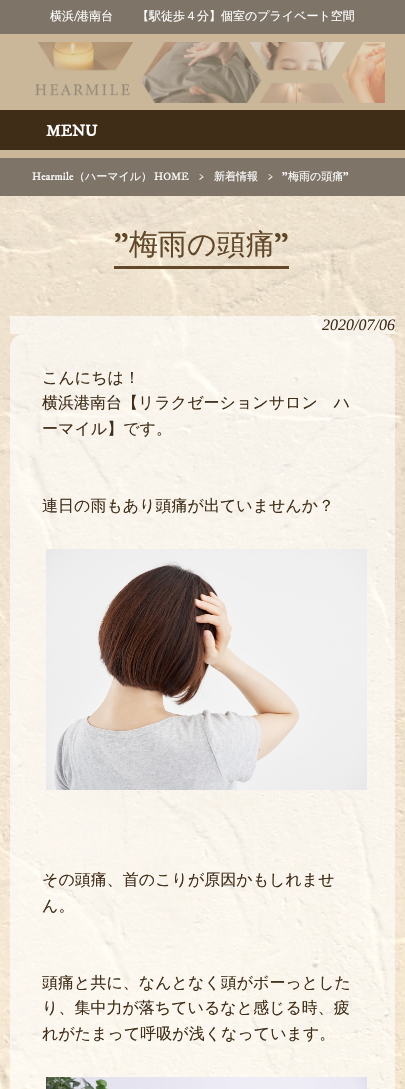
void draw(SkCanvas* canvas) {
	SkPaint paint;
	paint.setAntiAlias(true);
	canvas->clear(0xffffffff);
	canvas->drawImageRect(SkImages::DeferredFromEncodedData(SkData::MakeFromFileName("img1.png")), SkRect::MakeXYWH(0, 196, 405, 893), SkSamplingOptions());
	paint.setColor(0xff7e7468);
	canvas->drawRect(SkRect::MakeXYWH(0, 0, 405, 34), paint);
	SkFont f1(fontMgr->matchFamilyStyle("WenQuanYi Zen Hei", SkFontStyle(500, SkFontStyle::kNormal_Width, SkFontStyle::kUpright_Slant)), 12);
	f1.setSubpixel(true);
	paint.setColor(0xffffffff);
	canvas->drawString("横浜", 50, 20, f1, paint);
	SkFont f2(fontMgr->matchFamilyStyle("IM FELL DW Pica", SkFontStyle::Normal()), 12);
	f2.setSubpixel(true);
	canvas->drawString("/", 74, 20, f2, paint);
	canvas->drawString("港南台　　【駅徒歩４分】個室のプライベート空間", 77, 20, f1, paint);
	paint.setColor(0xffcab799);
	canvas->drawRect(SkRect::MakeXYWH(0, 34, 405, 124), paint);
	canvas->drawImageRect(SkImages::DeferredFromEncodedData(SkData::MakeFromFileName("img2.png")), SkRect::MakeXYWH(35, 42, 350, 61), SkSamplingOptions());
	paint.setColor(0xff3f2d18);
	canvas->drawRect(SkRect::MakeXYWH(0, 110, 405, 40), paint);
	SkFont f3(fontMgr->matchFamilyStyle("IM FELL DW Pica", SkFontStyle::Bold()), 16);
	f3.setSubpixel(true);
	paint.setColor(0xffffffff);
	canvas->drawString("MENU", 46, 136, f3, paint);
	paint.setColor(0xff7e7468);
	canvas->drawRect(SkRect::MakeXYWH(0, 158, 405, 38), paint);
	SkFont f4(fontMgr->matchFamilyStyle("IM FELL DW Pica", SkFontStyle::Normal()), 11);
	f4.setSubpixel(true);
	paint.setColor(0xffffffff);
	canvas->drawString("Hearmile", 32, 180, f4, paint);
	SkFont f5(fontMgr->matchFamilyStyle("WenQuanYi Zen Hei", SkFontStyle(500, SkFontStyle::kNormal_Width, SkFontStyle::kUpright_Slant)), 11);
	f5.setSubpixel(true);
	canvas->drawString("（ハーマイル）", 74, 180, f5, paint);
	canvas->drawString("HOME", 154, 180, f4, paint);
	canvas->drawString(">", 199, 180, f4, paint);
	canvas->drawString("新着情報", 214, 180, f5, paint);
	canvas->drawString(">", 268, 180, f4, paint);
	canvas->drawString("”", 282, 180, f4, paint);
	canvas->drawString("梅雨の頭痛", 288, 180, f5, paint);
	canvas->drawString("”", 343, 180, f4, paint);
	SkFont f6(fontMgr->matchFamilyStyle("IM FELL DW Pica", SkFontStyle::Normal()), 29);
	f6.setSubpixel(true);
	paint.setColor(0xff62482a);
	canvas->drawString("”", 114, 254, f6, paint);
	SkFont f7(fontMgr->matchFamilyStyle("WenQuanYi Zen Hei", SkFontStyle(500, SkFontStyle::kNormal_Width, SkFontStyle::kUpright_Slant)), 29);
	f7.setSubpixel(true);
	canvas->drawString("梅雨の頭痛", 129, 254, f7, paint);
	canvas->drawRect(SkRect::MakeXYWH(114, 266, 175, 3), paint);
	canvas->drawString("”", 274, 254, f6, paint);
	paint.setColor(0x99ffffff);
	canvas->drawRect(SkRect::MakeXYWH(10, 316, 385, 18), paint);
	SkFont f8(fontMgr->matchFamilyStyle("Liberation Serif", SkFontStyle::Italic()), 16);
	f8.setSubpixel(true);
	paint.setColor(0xff3f2d18);
	canvas->drawString("2020/07/06", 322, 330, f8, paint);
	paint.setColor(0x99ffffff);
	canvas->drawRoundRect(SkRect::MakeXYWH(10, 334, 385, 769), 14, 14, paint);
	SkFont f9(fontMgr->matchFamilyStyle("WenQuanYi Zen Hei", SkFontStyle(500, SkFontStyle::kNormal_Width, SkFontStyle::kUpright_Slant)), 16);
	f9.setSubpixel(true);
	paint.setColor(0xff3f2d18);
	canvas->drawString("こんにちは！", 42, 383, f9, paint);
	canvas->drawString("横浜港南台【リラクゼーションサロン　ハ", 42, 408, f9, paint);
	canvas->drawString("ーマイル】です。", 42, 434, f9, paint);
	canvas->drawString("連日の雨もあり頭痛が出ていませんか？", 42, 511, f9, paint);
	canvas->drawImageRect(SkImages::DeferredFromEncodedData(SkData::MakeFromFileName("img3.png")), SkRect::MakeXYWH(46, 549, 321, 241), SkSamplingOptions());
	canvas->drawString("その頭痛、首のこりが原因かもしれませ", 42, 885, f9, paint);
	canvas->drawString("ん。", 42, 911, f9, paint);
	canvas->drawString("頭痛と共に、なんとなく頭がボーっとした", 42, 988, f9, paint);
	canvas->drawString("り、集中力が落ちているなと感じる時、疲", 42, 1013, f9, paint);
	canvas->drawString("れがたまって呼吸が浅くなっています。", 42, 1039, f9, paint);
	canvas->drawImageRect(SkImages::DeferredFromEncodedData(SkData::MakeFromFileName("img4.png")), SkRect::MakeXYWH(46, 1077, 321, 12), SkSamplingOptions());
}
